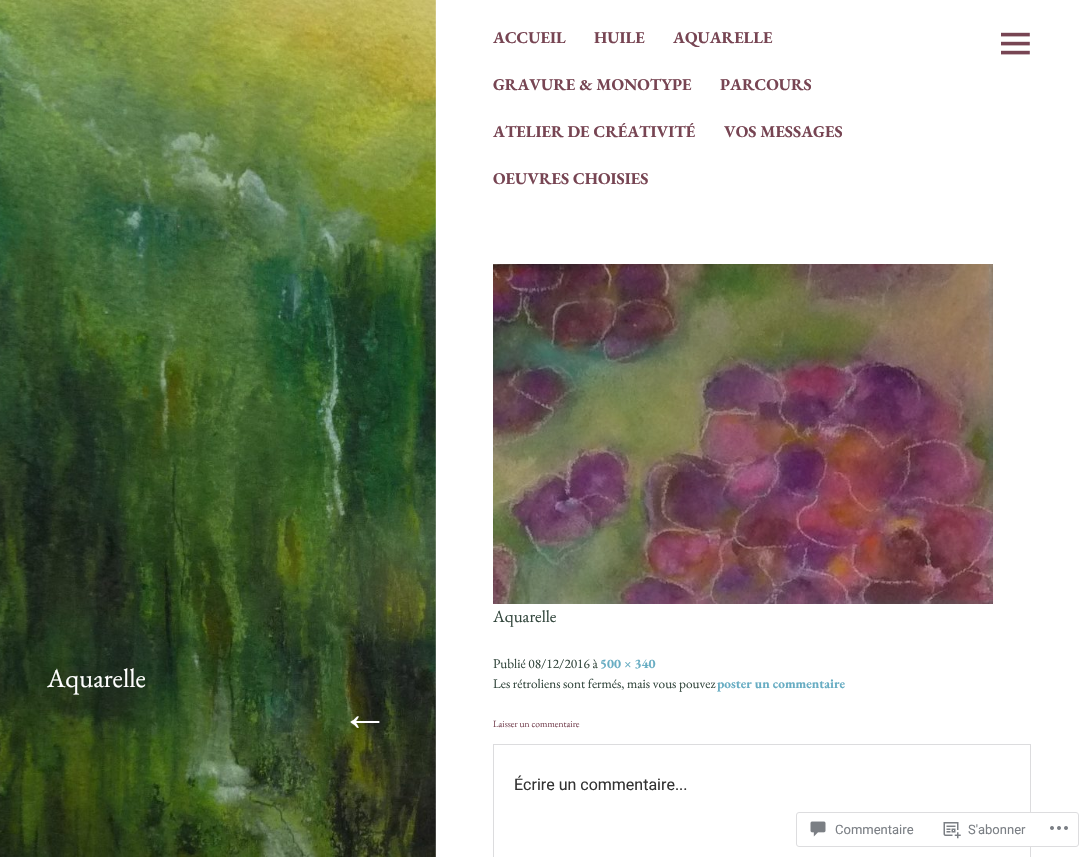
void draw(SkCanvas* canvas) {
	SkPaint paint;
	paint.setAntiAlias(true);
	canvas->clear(0xffffffff);
	canvas->drawImageRect(SkImages::DeferredFromEncodedData(SkData::MakeFromFileName("img1.png")), SkRect::MakeXYWH(0, 0, 436, 857), SkSamplingOptions());
	SkFont f1(fontMgr->matchFamilyStyle("EB Garamond", SkFontStyle::Normal()), 26.5);
	f1.setSubpixel(true);
	paint.setColor(0xffffffff);
	canvas->drawString("Aquarelle", 47, 687, f1, paint);
	SkFont f2(fontMgr->matchFamilyStyle("Liberation Serif", SkFontStyle::Bold()), 48);
	f2.setSubpixel(true);
	canvas->drawString("←", 341, 730, f2, paint);
	SkFont f3(fontMgr->matchFamilyStyle("EB Garamond", SkFontStyle::Bold()), 16.5);
	f3.setSubpixel(true);
	paint.setColor(0xff774553);
	canvas->drawString("ACCUEIL", 493, 43, f3, paint);
	canvas->drawString("HUILE", 594, 43, f3, paint);
	canvas->drawString("AQUARELLE", 673, 43, f3, paint);
	canvas->drawString("GRAVURE & MONOTYPE", 493, 90, f3, paint);
	canvas->drawString("PARCOURS", 720, 90, f3, paint);
	canvas->drawString("ATELIER DE CRÉATIVITÉ", 493, 137, f3, paint);
	canvas->drawString("VOS MESSAGES", 724, 137, f3, paint);
	canvas->drawString("OEUVRES CHOISIES", 493, 184, f3, paint);
	canvas->drawImageRect(SkImages::DeferredFromEncodedData(SkData::MakeFromFileName("img2.png")), SkRect::MakeXYWH(1001, 32, 29, 23), SkSamplingOptions());
	canvas->drawImageRect(SkImages::DeferredFromEncodedData(SkData::MakeFromFileName("img3.png")), SkRect::MakeXYWH(493, 264, 500, 340), SkSamplingOptions());
	SkFont f4(fontMgr->matchFamilyStyle("EB Garamond", SkFontStyle::Normal()), 17);
	f4.setSubpixel(true);
	paint.setColor(0xff33473d);
	canvas->drawString("Aquarelle", 493, 622, f4, paint);
	SkFont f5(fontMgr->matchFamilyStyle("EB Garamond", SkFontStyle::Normal()), 13.25);
	f5.setSubpixel(true);
	canvas->drawString("Publié 08/12/2016 à", 493, 668, f5, paint);
	SkFont f6(fontMgr->matchFamilyStyle("EB Garamond", SkFontStyle::Bold()), 13.25);
	f6.setSubpixel(true);
	paint.setColor(0xff68adc3);
	canvas->drawString("500 × 340", 600, 668, f6, paint);
	paint.setColor(0xff33473d);
	canvas->drawString("Les rétroliens sont fermés, mais vous pouvez", 493, 688, f5, paint);
	paint.setColor(0xff68adc3);
	canvas->drawString("poster un commentaire", 717, 688, f6, paint);
	SkFont f7(fontMgr->matchFamilyStyle("EB Garamond", SkFontStyle::Normal()), 9.5);
	f7.setSubpixel(true);
	paint.setColor(0xff774553);
	canvas->drawString("Laisser un commentaire", 493, 727, f7, paint);
	paint.setStroke(true);
	paint.setStrokeWidth(1);
	paint.setColor(0xffdcdcde);
	canvas->drawRect(SkRect::MakeXYWH(493.5, 744.5, 537, 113), paint);
	SkFont f8(fontMgr->matchFamilyStyle("Roboto", SkFontStyle::Normal()), 16);
	f8.setSubpixel(true);
	paint.setStroke(false);
	paint.setColor(0xff333333);
	canvas->drawString("Écrire un commentaire...", 514, 790, f8, paint);
	paint.setColor(0xfaffffff);
	canvas->drawRoundRect(SkRect::MakeXYWH(796.5, 812.5, 282, 34), 2.5, 2.5, paint);
	paint.setStroke(true);
	paint.setColor(0xffdddddf);
	canvas->drawRoundRect(SkRect::MakeXYWH(796.5, 812.5, 282, 34), 2.5, 2.5, paint);
	canvas->drawImageRect(SkImages::DeferredFromEncodedData(SkData::MakeFromFileName("img4.png")), SkRect::MakeXYWH(810, 821, 16, 16), SkSamplingOptions());
	SkFont f9(fontMgr->matchFamilyStyle("Roboto", SkFontStyle::Normal()), 13);
	f9.setSubpixel(true);
	paint.setStroke(false);
	paint.setColor(0xff7b7f85);
	canvas->drawString("Commentaire", 835, 834, f9, paint);
	canvas->drawImageRect(SkImages::DeferredFromEncodedData(SkData::MakeFromFileName("img5.png")), SkRect::MakeXYWH(943, 822, 18, 17), SkSamplingOptions());
	canvas->drawString("S'abonner", 968, 834, f9, paint);
	canvas->drawImageRect(SkImages::DeferredFromEncodedData(SkData::MakeFromFileName("img6.png")), SkRect::MakeXYWH(1050, 826, 18, 4), SkSamplingOptions());
}
